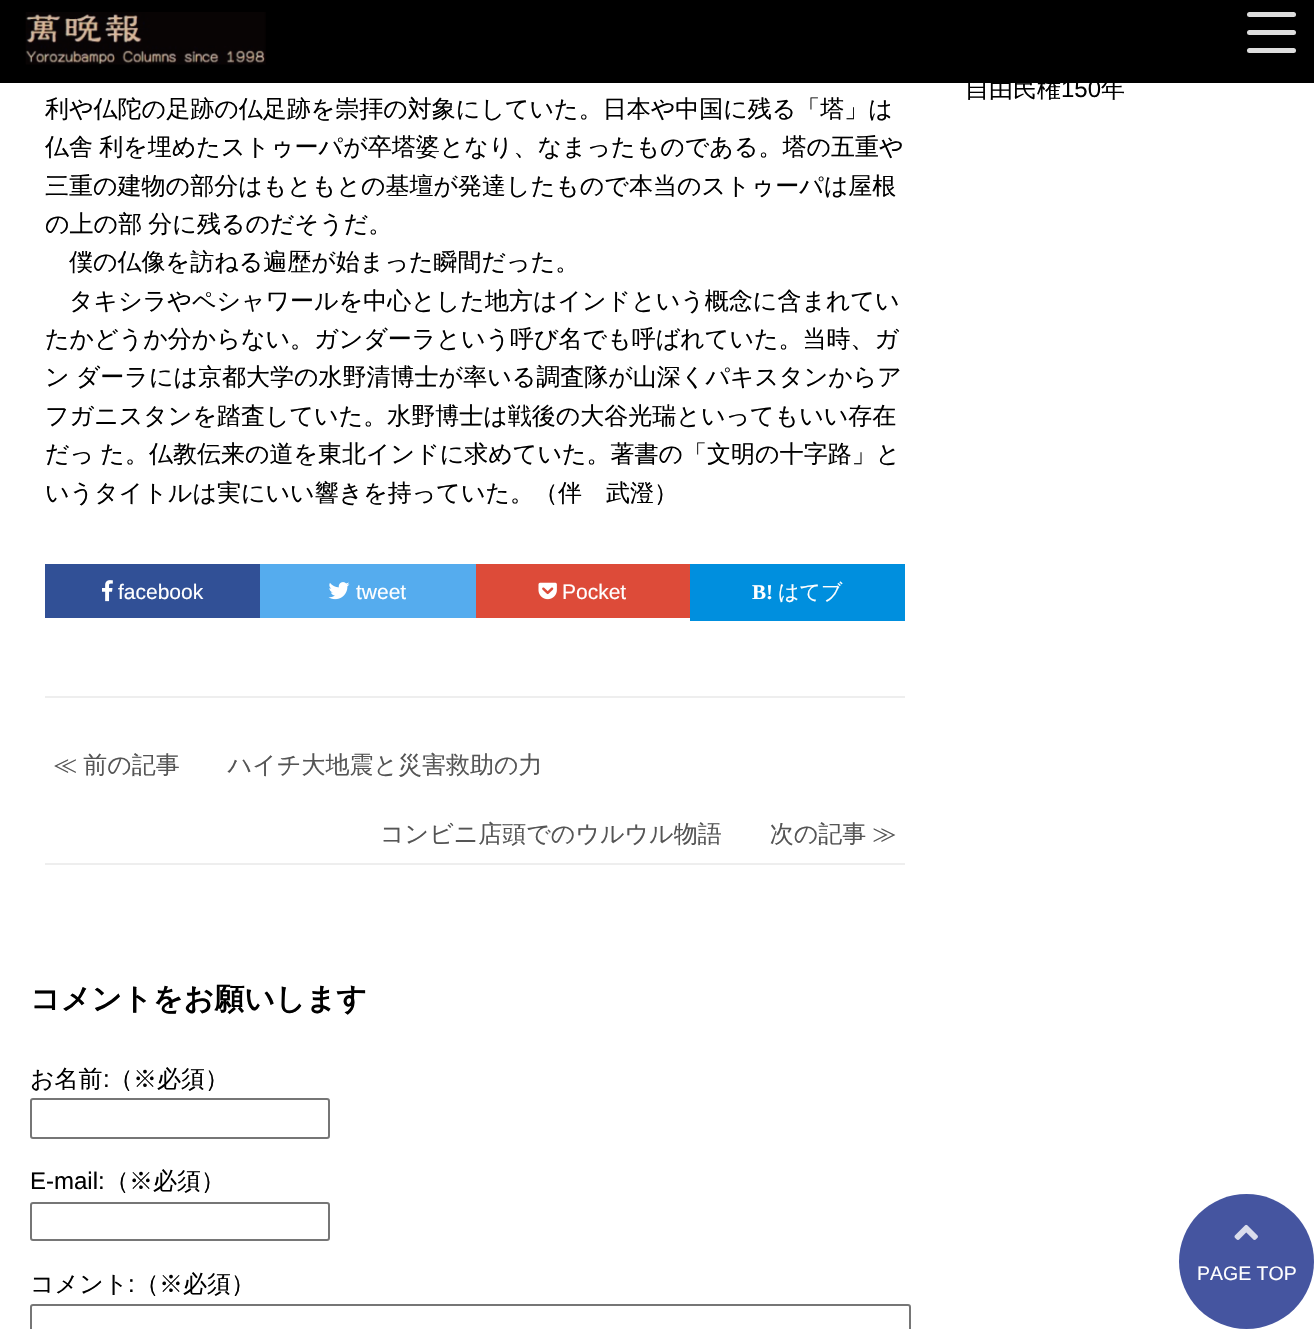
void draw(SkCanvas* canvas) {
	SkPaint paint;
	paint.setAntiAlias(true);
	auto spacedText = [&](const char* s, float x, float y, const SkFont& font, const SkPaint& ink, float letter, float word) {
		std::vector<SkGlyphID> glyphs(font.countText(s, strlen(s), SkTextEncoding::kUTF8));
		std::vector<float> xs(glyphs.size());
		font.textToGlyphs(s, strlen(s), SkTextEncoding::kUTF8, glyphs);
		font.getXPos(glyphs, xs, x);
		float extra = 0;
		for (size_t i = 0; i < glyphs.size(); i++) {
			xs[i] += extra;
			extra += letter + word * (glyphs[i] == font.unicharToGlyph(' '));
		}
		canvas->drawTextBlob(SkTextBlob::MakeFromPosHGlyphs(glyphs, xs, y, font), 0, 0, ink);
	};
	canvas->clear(0xffffffff);
	paint.setColor(0xff000000);
	canvas->drawRect(SkRect::MakeXYWH(0, 0, 1314, 83), paint);
	canvas->drawImageRect(SkImages::DeferredFromEncodedData(SkData::MakeFromFileName("img1.png")), SkRect::MakeXYWH(25, 12, 241, 53), SkSamplingOptions());
	paint.setColor(0xffdddddd);
	canvas->drawRoundRect(SkRect::MakeXYWH(1247, 12, 49, 5), 2.5, 2.5, paint);
	canvas->drawRoundRect(SkRect::MakeXYWH(1247, 30, 49, 5), 2.5, 2.5, paint);
	canvas->drawRoundRect(SkRect::MakeXYWH(1247, 48, 49, 5), 2.5, 2.5, paint);
	SkFont f1(fontMgr->matchFamilyStyle("WenQuanYi Zen Hei", SkFontStyle(500, SkFontStyle::kNormal_Width, SkFontStyle::kUpright_Slant)), 24);
	f1.setSubpixel(true);
	paint.setColor(0xff000000);
	canvas->drawString("自由民権", 965, 97, f1, paint);
	SkFont f2(fontMgr->matchFamilyStyle("Liberation Sans", SkFontStyle::Normal()), 24);
	f2.setSubpixel(true);
	canvas->drawString("150", 1061, 97, f2, paint);
	canvas->drawString("年", 1101, 97, f1, paint);
	canvas->drawString("利や仏陀の足跡の仏足跡を崇拝の対象にしていた。日本や中国に残る「塔」は", 45, 117, f1, paint);
	spacedText("仏舎 利を埋めたストゥーパが卒塔婆となり、なまったものである。塔の五重や", 45, 155, f1, paint, 0, -1);
	canvas->drawString("三重の建物の部分はもともとの基壇が発達したもので本当のストゥーパは屋根", 45, 194, f1, paint);
	spacedText("の上の部 分に残るのだそうだ。", 45, 232, f1, paint, 0, -1);
	canvas->drawString("僕の仏像を訪ねる遍歴が始まった瞬間だった。", 69, 270, f1, paint);
	canvas->drawString("タキシラやペシャワールを中心とした地方はインドという概念に含まれてい", 69, 309, f1, paint);
	canvas->drawString("たかどうか分からない。ガンダーラという呼び名でも呼ばれていた。当時、ガ", 45, 347, f1, paint);
	spacedText("ン ダーラには京都大学の水野清博士が率いる調査隊が山深くパキスタンからア", 45, 385, f1, paint, 0, -1);
	canvas->drawString("フガニスタンを踏査していた。水野博士は戦後の大谷光瑞といってもいい存在", 45, 424, f1, paint);
	spacedText("だっ た。仏教伝来の道を東北インドに求めていた。著書の「文明の十字路」と", 45, 462, f1, paint, 0, -1);
	canvas->drawString("いうタイトルは実にいい響きを持っていた。（伴　武澄）", 45, 501, f1, paint);
	paint.setColor(0xff315096);
	canvas->drawRect(SkRect::MakeXYWH(45, 564, 215, 54), paint);
	canvas->drawImageRect(SkImages::DeferredFromEncodedData(SkData::MakeFromFileName("img2.png")), SkRect::MakeXYWH(102, 580, 11, 22), SkSamplingOptions());
	SkFont f3(fontMgr->matchFamilyStyle("Liberation Sans", SkFontStyle::Normal()), 21);
	f3.setSubpixel(true);
	paint.setColor(0xffffffff);
	canvas->drawString("facebook", 118, 599, f3, paint);
	paint.setColor(0xff55acee);
	canvas->drawRect(SkRect::MakeXYWH(260, 564, 216, 54), paint);
	canvas->drawImageRect(SkImages::DeferredFromEncodedData(SkData::MakeFromFileName("img3.png")), SkRect::MakeXYWH(328, 582, 22, 18), SkSamplingOptions());
	paint.setColor(0xffffffff);
	canvas->drawString("tweet", 356, 599, f3, paint);
	paint.setColor(0xffdd4b39);
	canvas->drawRect(SkRect::MakeXYWH(476, 564, 214, 54), paint);
	canvas->drawImageRect(SkImages::DeferredFromEncodedData(SkData::MakeFromFileName("img4.png")), SkRect::MakeXYWH(538, 582, 19, 18), SkSamplingOptions());
	paint.setColor(0xffffffff);
	canvas->drawString("Pocket", 562, 599, f3, paint);
	paint.setColor(0xff008fde);
	canvas->drawRect(SkRect::MakeXYWH(690, 564, 215, 57), paint);
	SkFont f4(fontMgr->matchFamilyStyle("Liberation Serif", SkFontStyle::Bold()), 21);
	f4.setSubpixel(true);
	paint.setColor(0xffffffff);
	canvas->drawString("B!", 752, 599, f4, paint);
	SkFont f5(fontMgr->matchFamilyStyle("WenQuanYi Zen Hei", SkFontStyle(500, SkFontStyle::kNormal_Width, SkFontStyle::kUpright_Slant)), 21);
	f5.setSubpixel(true);
	canvas->drawString("はてブ", 778, 599, f5, paint);
	paint.setColor(0xffeeeeee);
	canvas->drawRect(SkRect::MakeXYWH(45, 696, 860, 2), paint);
	canvas->drawRect(SkRect::MakeXYWH(45, 863, 860, 2), paint);
	paint.setColor(0xff555555);
	spacedText("≪ 前の記事　　ハイチ大地震と災害救助の力", 53, 773, f1, paint, 0, -1);
	spacedText("コンビニ店頭でのウルウル物語　　次の記事 ≫", 380, 842, f1, paint, 0, -1);
	SkFont f6(fontMgr->matchFamilyStyle("WenQuanYi Zen Hei", SkFontStyle::Bold()), 30);
	f6.setSubpixel(true);
	paint.setColor(0xff000000);
	canvas->drawString("コメントをお願いします", 30, 1009, f6, paint);
	canvas->drawString("お名前", 30, 1087, f1, paint);
	canvas->drawString(":", 103, 1087, f2, paint);
	canvas->drawString("（※必須）", 109, 1087, f1, paint);
	paint.setStroke(true);
	paint.setStrokeWidth(2);
	paint.setColor(0xff767676);
	canvas->drawRoundRect(SkRect::MakeXYWH(31, 1099, 298, 39), 2, 2, paint);
	paint.setStroke(false);
	paint.setColor(0xff000000);
	canvas->drawString("E-mail:", 30, 1189, f2, paint);
	canvas->drawString("（※必須）", 105, 1189, f1, paint);
	paint.setStroke(true);
	paint.setColor(0xff767676);
	canvas->drawRoundRect(SkRect::MakeXYWH(31, 1203, 298, 37), 2, 2, paint);
	paint.setStroke(false);
	paint.setColor(0xff000000);
	canvas->drawString("コメント", 30, 1292, f1, paint);
	canvas->drawString(":", 128, 1292, f2, paint);
	canvas->drawString("（※必須）", 135, 1292, f1, paint);
	paint.setStroke(true);
	paint.setColor(0xff767676);
	canvas->drawRoundRect(SkRect::MakeXYWH(31, 1305, 879, 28), 2, 2, paint);
	paint.setStroke(false);
	paint.setColor(0xff4555a0);
	canvas->drawCircle(1246.5, 1261.5, 67.5, paint);
	canvas->drawImageRect(SkImages::DeferredFromEncodedData(SkData::MakeFromFileName("img5.png")), SkRect::MakeXYWH(1234, 1224, 24, 16), SkSamplingOptions());
	SkFont f7(fontMgr->matchFamilyStyle("Liberation Sans", SkFontStyle::Normal()), 19.5);
	f7.setSubpixel(true);
	paint.setColor(0xffffffff);
	canvas->drawString("PAGE TOP", 1197, 1280, f7, paint);
}
